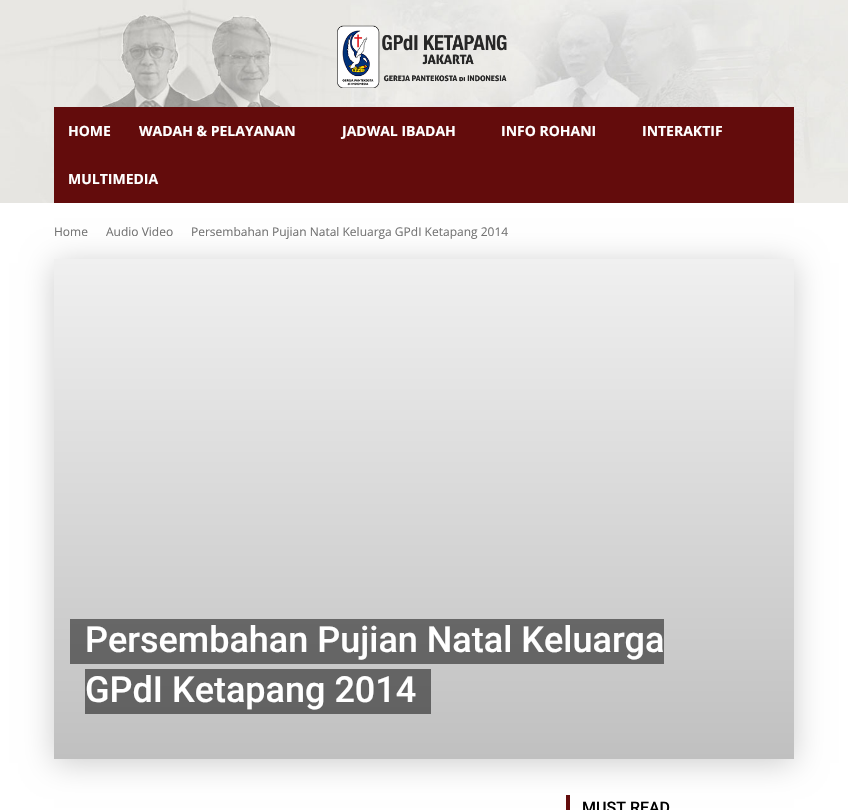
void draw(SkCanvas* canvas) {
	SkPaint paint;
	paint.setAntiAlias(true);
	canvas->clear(0xffffffff);
	canvas->drawImageRect(SkImages::DeferredFromEncodedData(SkData::MakeFromFileName("img1.png")), SkRect::MakeXYWH(0, 0, 848, 203), SkSamplingOptions());
	canvas->drawImageRect(SkImages::DeferredFromEncodedData(SkData::MakeFromFileName("img2.png")), SkRect::MakeXYWH(337, 25, 170, 63), SkSamplingOptions());
	paint.setColor(0xff630c0c);
	canvas->drawRect(SkRect::MakeXYWH(54, 107, 740, 96), paint);
	SkFont f1(fontMgr->matchFamilyStyle("Open Sans", SkFontStyle::Bold()), 14);
	f1.setSubpixel(true);
	paint.setColor(0xffffffff);
	canvas->drawString("HOME", 68, 136, f1, paint);
	canvas->drawString("WADAH & PELAYANAN", 139, 136, f1, paint);
	canvas->drawString("JADWAL IBADAH", 342, 136, f1, paint);
	canvas->drawString("INFO ROHANI", 501, 136, f1, paint);
	canvas->drawString("INTERAKTIF", 642, 136, f1, paint);
	canvas->drawString("MULTIMEDIA", 68, 184, f1, paint);
	paint.setColor(0x33000000);
	paint.setMaskFilter(SkMaskFilter::MakeBlur(kNormal_SkBlurStyle, 15));
	canvas->drawRect(SkRect::MakeXYWH(54, 263, 740, 500), paint);
	paint.setMaskFilter(nullptr);
	{
		const SkColor colors[] = {0xffc0c0c0, 0xfff0f0f0};
		const float stops[] = {0, 1};
		const SkPoint ends[] = {{424, 759}, {424, 259}};
		paint.setShader(SkGradientShader::MakeLinear(ends, colors, stops, 2, SkTileMode::kClamp));
		paint.setAlpha(255);
	}
	canvas->drawRect(SkRect::MakeXYWH(54, 259, 740, 500), paint);
	{
		const SkColor colors[] = {0xff606060, 0xff787878};
		const float stops[] = {0, 1};
		const SkPoint ends[] = {{424, 759}, {424, 259}};
		paint.setShader(SkGradientShader::MakeLinear(ends, colors, stops, 2, SkTileMode::kClamp));
		paint.setAlpha(255);
	}
	canvas->drawRect(SkRect::MakeXYWH(85, 669, 346, 45), paint);
	canvas->drawRect(SkRect::MakeXYWH(70, 619, 594, 45), paint);
	SkFont f2(fontMgr->matchFamilyStyle("Open Sans", SkFontStyle::Normal()), 12);
	f2.setSubpixel(true);
	paint.setShader(nullptr);
	paint.setColor(0xff747474);
	canvas->drawString("Home", 54, 236, f2, paint);
	canvas->drawString("Audio Video", 106, 236, f2, paint);
	canvas->drawString("Persembahan Pujian Natal Keluarga GPdI Ketapang 2014", 191, 236, f2, paint);
	SkFont f3(fontMgr->matchFamilyStyle("Roboto", SkFontStyle(500, SkFontStyle::kNormal_Width, SkFontStyle::kUpright_Slant)), 36);
	f3.setSubpixel(true);
	paint.setColor(0xffffffff);
	canvas->drawString("Persembahan Pujian Natal Keluarga", 85, 652, f3, paint);
	canvas->drawString("GPdI Ketapang 2014", 85, 702, f3, paint);
	paint.setColor(0xff630c0c);
	canvas->drawRect(SkRect::MakeXYWH(566, 795, 4, 15), paint);
	SkFont f4(fontMgr->matchFamilyStyle("Roboto", SkFontStyle(500, SkFontStyle::kNormal_Width, SkFontStyle::kUpright_Slant)), 16);
	f4.setSubpixel(true);
	paint.setColor(0xff000000);
	canvas->drawString("MUST READ", 582, 813, f4, paint);
}
